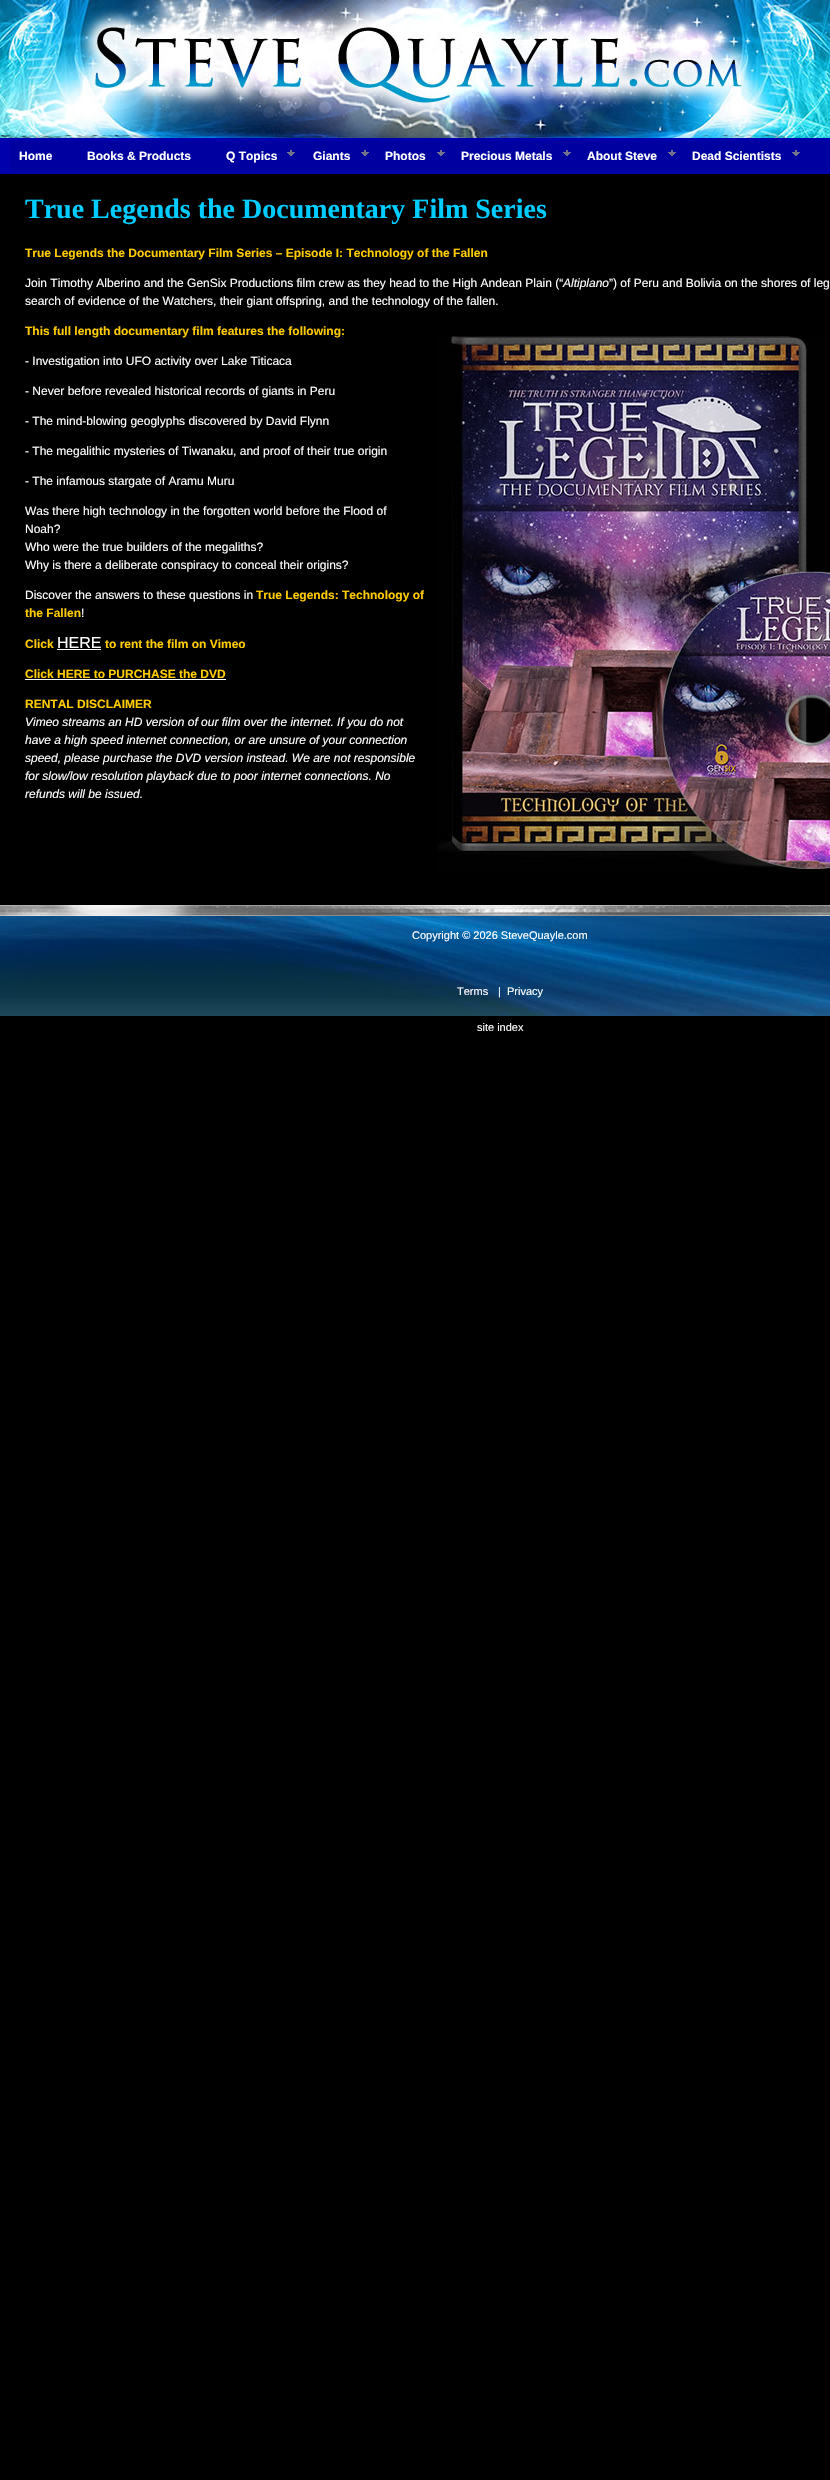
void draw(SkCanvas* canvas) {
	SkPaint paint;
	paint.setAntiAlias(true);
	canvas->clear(0xff000000);
	canvas->drawImageRect(SkImages::DeferredFromEncodedData(SkData::MakeFromFileName("img1.png")), SkRect::MakeXYWH(0, 0, 830, 138), SkSamplingOptions());
	paint.setColor(0xff0000ad);
	canvas->drawRect(SkRect::MakeXYWH(0, 138, 830, 36), paint);
	paint.setColor(0xff0000a0);
	canvas->drawRect(SkRect::MakeXYWH(11, 144, 819, 24), paint);
	canvas->drawRect(SkRect::MakeXYWH(10, 141, 820, 3), paint);
	canvas->drawRect(SkRect::MakeXYWH(10, 168, 820, 3), paint);
	canvas->drawRect(SkRect::MakeXYWH(10, 141, 1, 30), paint);
	SkFont f1(fontMgr->matchFamilyStyle("Liberation Sans", SkFontStyle::Bold()), 12);
	f1.setSubpixel(true);
	paint.setColor(0xffffffff);
	canvas->drawString("Home", 19, 160, f1, paint);
	canvas->drawString("Books & Products", 87, 160, f1, paint);
	canvas->drawString("Q Topics", 226, 160, f1, paint);
	canvas->drawImageRect(SkImages::DeferredFromEncodedData(SkData::MakeFromFileName("img2.png")), SkRect::MakeXYWH(287, 150, 8, 6), SkSamplingOptions());
	canvas->drawString("Giants", 313, 160, f1, paint);
	canvas->drawImageRect(SkImages::DeferredFromEncodedData(SkData::MakeFromFileName("img2.png")), SkRect::MakeXYWH(361, 150, 8, 6), SkSamplingOptions());
	canvas->drawString("Photos", 385, 160, f1, paint);
	canvas->drawImageRect(SkImages::DeferredFromEncodedData(SkData::MakeFromFileName("img2.png")), SkRect::MakeXYWH(437, 150, 8, 6), SkSamplingOptions());
	canvas->drawString("Precious Metals", 461, 160, f1, paint);
	canvas->drawImageRect(SkImages::DeferredFromEncodedData(SkData::MakeFromFileName("img2.png")), SkRect::MakeXYWH(563, 150, 8, 6), SkSamplingOptions());
	canvas->drawString("About Steve", 587, 160, f1, paint);
	canvas->drawImageRect(SkImages::DeferredFromEncodedData(SkData::MakeFromFileName("img2.png")), SkRect::MakeXYWH(668, 150, 8, 6), SkSamplingOptions());
	canvas->drawString("Dead Scientists", 692, 160, f1, paint);
	canvas->drawImageRect(SkImages::DeferredFromEncodedData(SkData::MakeFromFileName("img2.png")), SkRect::MakeXYWH(792, 150, 8, 6), SkSamplingOptions());
	SkFont f2(fontMgr->matchFamilyStyle("Liberation Serif", SkFontStyle::Bold()), 28);
	f2.setSubpixel(true);
	paint.setColor(0xff00ccff);
	canvas->drawString("True Legends the Documentary Film Series", 25, 218, f2, paint);
	paint.setColor(0xffffcc00);
	canvas->drawString("True Legends the Documentary Film Series – Episode I: Technology of the Fallen", 25, 257, f1, paint);
	SkFont f3(fontMgr->matchFamilyStyle("Liberation Sans", SkFontStyle::Normal()), 12);
	f3.setSubpixel(true);
	paint.setColor(0xffffffff);
	canvas->drawString("Join Timothy Alberino and the GenSix Productions film crew as they head to the High Andean Plain (“", 25, 287, f3, paint);
	SkFont f4(fontMgr->matchFamilyStyle("Liberation Sans", SkFontStyle::Italic()), 12);
	f4.setSubpixel(true);
	canvas->drawString("Altiplano", 563, 287, f4, paint);
	canvas->drawString("”) of Peru and Bolivia on the shores of leg", 609, 287, f3, paint);
	canvas->drawString("search of evidence of the Watchers, their giant offspring, and the technology of the fallen.", 25, 305, f3, paint);
	paint.setColor(0xffffcc00);
	canvas->drawString("This full length documentary film features the following:", 25, 335, f1, paint);
	canvas->drawImageRect(SkImages::DeferredFromEncodedData(SkData::MakeFromFileName("img3.png")), SkRect::MakeXYWH(437, 336, 393, 538), SkSamplingOptions());
	paint.setColor(0xffffffff);
	canvas->drawString("- Investigation into UFO activity over Lake Titicaca", 25, 365, f3, paint);
	canvas->drawString("- Never before revealed historical records of giants in Peru", 25, 395, f3, paint);
	canvas->drawString("- The mind-blowing geoglyphs discovered by David Flynn", 25, 425, f3, paint);
	canvas->drawString("- The megalithic mysteries of Tiwanaku, and proof of their true origin", 25, 455, f3, paint);
	canvas->drawString("- The infamous stargate of Aramu Muru", 25, 485, f3, paint);
	canvas->drawString("Was there high technology in the forgotten world before the Flood of", 25, 515, f3, paint);
	canvas->drawString("Noah?", 25, 533, f3, paint);
	canvas->drawString("Who were the true builders of the megaliths?", 25, 551, f3, paint);
	canvas->drawString("Why is there a deliberate conspiracy to conceal their origins?", 25, 569, f3, paint);
	canvas->drawString("Discover the answers to these questions in", 25, 599, f3, paint);
	paint.setColor(0xffffcc00);
	canvas->drawString("True Legends: Technology of", 256, 599, f1, paint);
	canvas->drawString("the Fallen", 25, 617, f1, paint);
	paint.setColor(0xffffffff);
	canvas->drawString("!", 81, 617, f3, paint);
	paint.setColor(0xffffcc00);
	canvas->drawString("Click", 25, 648, f1, paint);
	paint.setColor(0xffffffff);
	canvas->drawRect(SkRect::MakeXYWH(57, 649, 44, 1), paint);
	SkFont f5(fontMgr->matchFamilyStyle("Liberation Sans", SkFontStyle::Normal()), 16);
	f5.setSubpixel(true);
	canvas->drawString("HERE", 57, 648, f5, paint);
	paint.setColor(0xffffcc00);
	canvas->drawString("to rent the film on Vimeo", 105, 648, f1, paint);
	canvas->drawString("Click HERE to PURCHASE the DVD", 25, 678, f1, paint);
	paint.setColor(0xffffffff);
	canvas->drawRect(SkRect::MakeXYWH(25, 679, 201, 1), paint);
	paint.setColor(0xffffcc00);
	canvas->drawString("RENTAL DISCLAIMER", 25, 708, f1, paint);
	paint.setColor(0xffffffff);
	canvas->drawString("Vimeo streams an HD version of our film over the internet. If you do not", 25, 726, f4, paint);
	canvas->drawString("have a high speed internet connection, or are unsure of your connection", 25, 744, f4, paint);
	canvas->drawString("speed, please purchase the DVD version instead. We are not responsible", 25, 762, f4, paint);
	canvas->drawString("for slow/low resolution playback due to poor internet connections. No", 25, 780, f4, paint);
	canvas->drawString("refunds will be issued.", 25, 798, f4, paint);
	canvas->drawImageRect(SkImages::DeferredFromEncodedData(SkData::MakeFromFileName("img4.png")), SkRect::MakeXYWH(0, 905, 830, 11), SkSamplingOptions());
	canvas->drawImageRect(SkImages::DeferredFromEncodedData(SkData::MakeFromFileName("img5.png")), SkRect::MakeXYWH(0, 916, 830, 100), SkSamplingOptions());
	SkFont f6(fontMgr->matchFamilyStyle("Liberation Sans", SkFontStyle::Normal()), 11);
	f6.setSubpixel(true);
	canvas->drawString("Copyright © 2026 SteveQuayle.com", 412, 939, f6, paint);
	canvas->drawString("Terms", 457, 995, f6, paint);
	canvas->drawString("|", 498, 995, f6, paint);
	canvas->drawString("Privacy", 507, 995, f6, paint);
	canvas->drawString("site index", 477, 1031, f6, paint);
}
